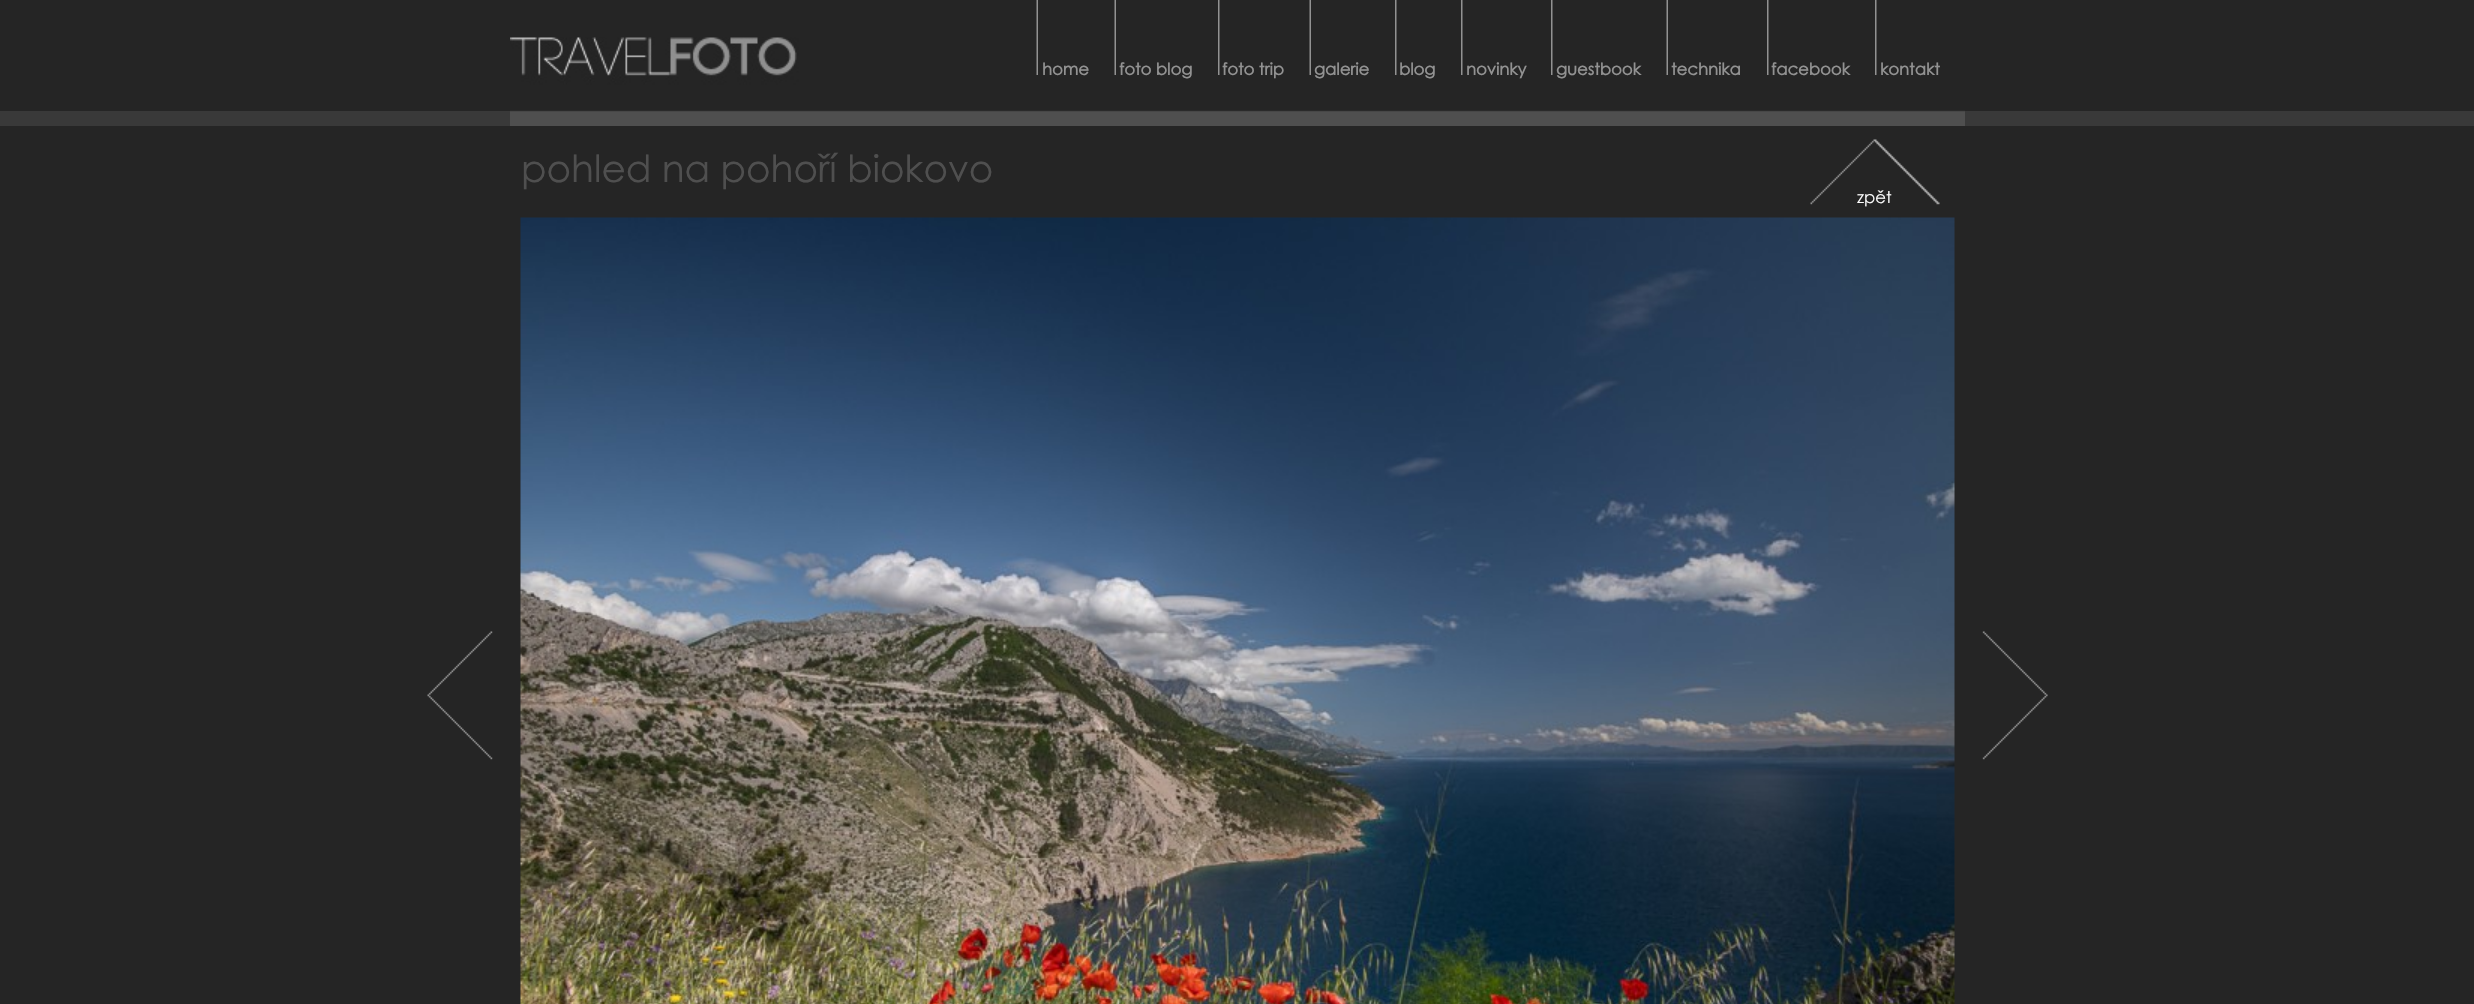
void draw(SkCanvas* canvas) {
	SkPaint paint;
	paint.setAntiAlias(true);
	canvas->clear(0xff252525);
	paint.setColor(0xff393939);
	canvas->drawRect(SkRect::MakeXYWH(0, 111, 2474, 15), paint);
	canvas->drawImageRect(SkImages::DeferredFromEncodedData(SkData::MakeFromFileName("img1.png")), SkRect::MakeXYWH(510, 37, 1455, 89), SkSamplingOptions());
	canvas->drawImageRect(SkImages::DeferredFromEncodedData(SkData::MakeFromFileName("img2.png")), SkRect::MakeXYWH(1036, 0, 2, 75), SkSamplingOptions());
	SkFont f1(fontMgr->matchFamilyStyle("Century Gothic", SkFontStyle::Bold()), 16.5);
	f1.setSubpixel(true);
	paint.setColor(0xff929292);
	canvas->drawString("home", 1042, 75, f1, paint);
	canvas->drawImageRect(SkImages::DeferredFromEncodedData(SkData::MakeFromFileName("img2.png")), SkRect::MakeXYWH(1114, 0, 2, 75), SkSamplingOptions());
	canvas->drawString("foto blog", 1119, 75, f1, paint);
	canvas->drawImageRect(SkImages::DeferredFromEncodedData(SkData::MakeFromFileName("img3.png")), SkRect::MakeXYWH(1218, 0, 2, 75), SkSamplingOptions());
	canvas->drawString("foto trip", 1222, 75, f1, paint);
	canvas->drawImageRect(SkImages::DeferredFromEncodedData(SkData::MakeFromFileName("img2.png")), SkRect::MakeXYWH(1309, 0, 2, 75), SkSamplingOptions());
	canvas->drawString("galerie", 1314, 75, f1, paint);
	canvas->drawImageRect(SkImages::DeferredFromEncodedData(SkData::MakeFromFileName("img3.png")), SkRect::MakeXYWH(1395, 0, 2, 75), SkSamplingOptions());
	canvas->drawString("blog", 1399, 75, f1, paint);
	canvas->drawImageRect(SkImages::DeferredFromEncodedData(SkData::MakeFromFileName("img3.png")), SkRect::MakeXYWH(1461, 0, 2, 75), SkSamplingOptions());
	canvas->drawString("novinky", 1466, 75, f1, paint);
	canvas->drawImageRect(SkImages::DeferredFromEncodedData(SkData::MakeFromFileName("img3.png")), SkRect::MakeXYWH(1551, 0, 2, 75), SkSamplingOptions());
	canvas->drawString("guestbook", 1556, 75, f1, paint);
	canvas->drawImageRect(SkImages::DeferredFromEncodedData(SkData::MakeFromFileName("img2.png")), SkRect::MakeXYWH(1666, 0, 2, 75), SkSamplingOptions());
	canvas->drawString("technika", 1671, 75, f1, paint);
	canvas->drawImageRect(SkImages::DeferredFromEncodedData(SkData::MakeFromFileName("img3.png")), SkRect::MakeXYWH(1767, 0, 2, 75), SkSamplingOptions());
	canvas->drawString("facebook", 1771, 75, f1, paint);
	canvas->drawImageRect(SkImages::DeferredFromEncodedData(SkData::MakeFromFileName("img3.png")), SkRect::MakeXYWH(1875, 0, 2, 75), SkSamplingOptions());
	canvas->drawString("kontakt", 1880, 75, f1, paint);
	SkFont f2(fontMgr->matchFamilyStyle("Century Gothic", SkFontStyle::Normal()), 37.5);
	f2.setSubpixel(true);
	paint.setColor(0xff4f4f4f);
	canvas->drawString("pohled na pohoří biokovo", 521, 182, f2, paint);
	canvas->drawImageRect(SkImages::DeferredFromEncodedData(SkData::MakeFromFileName("img4.png")), SkRect::MakeXYWH(1810, 139, 130, 66), SkSamplingOptions());
	SkFont f3(fontMgr->matchFamilyStyle("Century Gothic", SkFontStyle::Normal()), 16.5);
	f3.setSubpixel(true);
	paint.setColor(0xffffffff);
	canvas->drawString("zpět", 1857, 203, f3, paint);
	canvas->drawImageRect(SkImages::DeferredFromEncodedData(SkData::MakeFromFileName("img5.png")), SkRect::MakeXYWH(427, 631, 66, 129), SkSamplingOptions());
	canvas->drawImageRect(SkImages::DeferredFromEncodedData(SkData::MakeFromFileName("img6.png")), SkRect::MakeXYWH(1982, 631, 66, 129), SkSamplingOptions());
	canvas->drawImageRect(SkImages::DeferredFromEncodedData(SkData::MakeFromFileName("img7.png")), SkRect::MakeXYWH(520, 217, 1435, 787), SkSamplingOptions());
}
